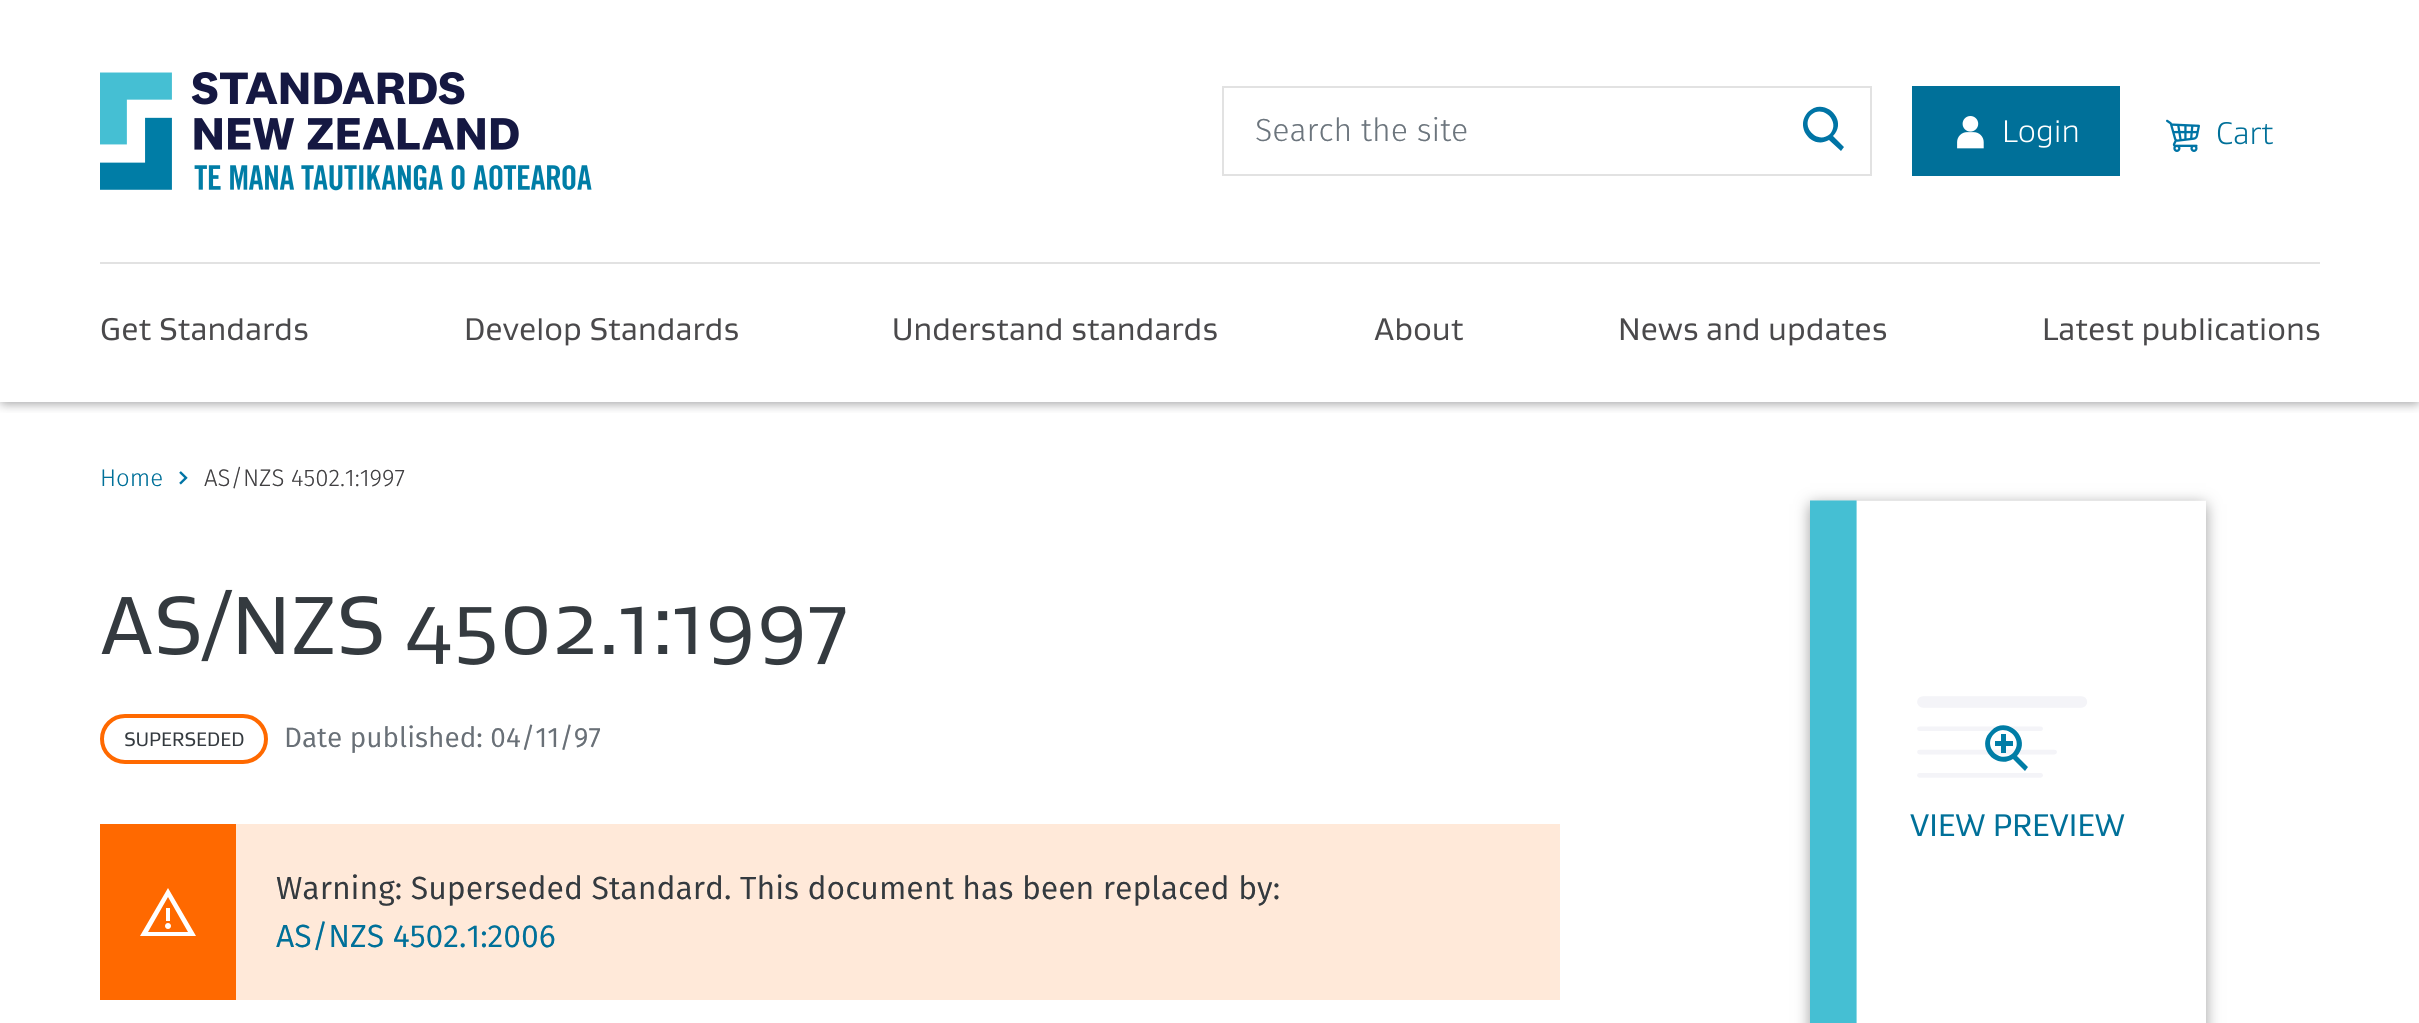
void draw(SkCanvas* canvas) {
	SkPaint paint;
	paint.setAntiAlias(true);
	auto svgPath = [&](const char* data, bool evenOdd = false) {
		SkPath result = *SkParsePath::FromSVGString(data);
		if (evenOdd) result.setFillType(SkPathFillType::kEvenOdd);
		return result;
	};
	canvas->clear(0xffffffff);
	canvas->save();
	canvas->clipRect(SkRect::MakeXYWH(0, 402, 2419, 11));
	paint.setColor(0x804a494b);
	paint.setMaskFilter(SkMaskFilter::MakeBlur(kNormal_SkBlurStyle, 5));
	canvas->drawRect(SkRect::MakeXYWH(0, 2, 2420, 402), paint);
	paint.setMaskFilter(nullptr);
	canvas->restore();
	paint.setColor(0xffe2e2e2);
	canvas->drawRect(SkRect::MakeXYWH(100, 262, 2220, 2), paint);
	canvas->drawImageRect(SkImages::DeferredFromEncodedData(SkData::MakeFromFileName("img1.png")), SkRect::MakeXYWH(100, 72, 492, 119), SkSamplingOptions());
	paint.setStroke(true);
	paint.setStrokeWidth(2);
	canvas->drawRect(SkRect::MakeXYWH(1223, 87, 648, 88), paint);
	SkFont f1(fontMgr->matchFamilyStyle("Fira Sans", SkFontStyle(300, SkFontStyle::kNormal_Width, SkFontStyle::kUpright_Slant)), 32);
	f1.setSubpixel(true);
	paint.setStroke(false);
	paint.setColor(0xff6c757d);
	canvas->drawString("Search the site", 1255, 141, f1, paint);
	paint.setColor(0xff0074a5);
	canvas->drawPath(svgPath("M1808 112C1824 96 1849 120 1833 136L1844 147L1841 151L1829 140C1812 150 1794 127 1808 112ZM1811 115C1800 127 1818 145 1830 134C1841 122 1823 104 1811 115Z"), paint);
	paint.setColor(0xff007099);
	canvas->drawRect(SkRect::MakeXYWH(1912, 86, 208, 90), paint);
	canvas->drawImageRect(SkImages::DeferredFromEncodedData(SkData::MakeFromFileName("img2.png")), SkRect::MakeXYWH(1957, 116, 27, 33), SkSamplingOptions());
	canvas->drawImageRect(SkImages::DeferredFromEncodedData(SkData::MakeFromFileName("img3.png")), SkRect::MakeXYWH(2005, 120, 73, 28), SkSamplingOptions());
	canvas->drawImageRect(SkImages::DeferredFromEncodedData(SkData::MakeFromFileName("img4.png")), SkRect::MakeXYWH(2166, 119, 34, 33), SkSamplingOptions());
	canvas->drawImageRect(SkImages::DeferredFromEncodedData(SkData::MakeFromFileName("img5.png")), SkRect::MakeXYWH(2217, 122, 56, 23), SkSamplingOptions());
	canvas->drawImageRect(SkImages::DeferredFromEncodedData(SkData::MakeFromFileName("img6.png")), SkRect::MakeXYWH(101, 317, 207, 24), SkSamplingOptions());
	canvas->drawImageRect(SkImages::DeferredFromEncodedData(SkData::MakeFromFileName("img7.png")), SkRect::MakeXYWH(466, 317, 272, 29), SkSamplingOptions());
	canvas->drawImageRect(SkImages::DeferredFromEncodedData(SkData::MakeFromFileName("img8.png")), SkRect::MakeXYWH(894, 318, 323, 23), SkSamplingOptions());
	canvas->drawImageRect(SkImages::DeferredFromEncodedData(SkData::MakeFromFileName("img9.png")), SkRect::MakeXYWH(1374, 318, 89, 23), SkSamplingOptions());
	canvas->drawImageRect(SkImages::DeferredFromEncodedData(SkData::MakeFromFileName("img10.png")), SkRect::MakeXYWH(1620, 318, 267, 28), SkSamplingOptions());
	canvas->drawImageRect(SkImages::DeferredFromEncodedData(SkData::MakeFromFileName("img11.png")), SkRect::MakeXYWH(2044, 318, 276, 28), SkSamplingOptions());
	SkFont f2(fontMgr->matchFamilyStyle("Fira Sans", SkFontStyle(300, SkFontStyle::kNormal_Width, SkFontStyle::kUpright_Slant)), 24);
	f2.setSubpixel(true);
	canvas->drawString("Home", 100, 486, f2, paint);
	canvas->drawImageRect(SkImages::DeferredFromEncodedData(SkData::MakeFromFileName("img12.png")), SkRect::MakeXYWH(179, 471, 9, 14), SkSamplingOptions());
	paint.setColor(0xff414042);
	canvas->drawString("AS/NZS 4502.1:1997", 204, 486, f2, paint);
	canvas->drawImageRect(SkImages::DeferredFromEncodedData(SkData::MakeFromFileName("img13.png")), SkRect::MakeXYWH(101, 589, 745, 77), SkSamplingOptions());
	paint.setStroke(true);
	paint.setStrokeWidth(4);
	paint.setColor(0xffff6900);
	canvas->drawRoundRect(SkRect::MakeXYWH(102, 716, 164, 46), 23, 23, paint);
	canvas->drawImageRect(SkImages::DeferredFromEncodedData(SkData::MakeFromFileName("img14.png")), SkRect::MakeXYWH(125, 732, 119, 15), SkSamplingOptions());
	SkFont f3(fontMgr->matchFamilyStyle("Fira Sans", SkFontStyle::Normal()), 28);
	f3.setSubpixel(true);
	paint.setStroke(false);
	paint.setColor(0xff697077);
	canvas->drawString("Date published: 04/11/97", 284, 747, f3, paint);
	paint.setColor(0xffffe9d9);
	canvas->drawRect(SkRect::MakeXYWH(236, 824, 1324, 176), paint);
	paint.setColor(0xffff6900);
	canvas->drawRect(SkRect::MakeXYWH(100, 824, 136, 176), paint);
	paint.setColor(0xffffffff);
	canvas->drawPath(svgPath("M168 897L188 932H148ZM168 888L140 936H196ZM166 908H170V921H166ZM168 929C164 929 164 923 168 923C172 923 172 929 168 929Z"), paint);
	SkFont f4(fontMgr->matchFamilyStyle("Fira Sans", SkFontStyle::Normal()), 32);
	f4.setSubpixel(true);
	paint.setColor(0xff343a3f);
	canvas->drawString("Warning: Superseded Standard. This document has been replaced by:", 276, 899, f4, paint);
	paint.setColor(0xff007099);
	canvas->drawString("AS/NZS 4502.1:2006", 276, 947, f4, paint);
	paint.setColor(0x61000000);
	paint.setMaskFilter(SkMaskFilter::MakeBlur(kNormal_SkBlurStyle, 7));
	canvas->drawRect(SkRect::MakeXYWH(1810, 504, 396, 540), paint);
	paint.setMaskFilter(nullptr);
	canvas->drawImageRect(SkImages::DeferredFromEncodedData(SkData::MakeFromFileName("img15.png")), SkRect::MakeXYWH(1810, 500, 396, 523), SkSamplingOptions());
	paint.setColor(0xff007da6);
	canvas->drawPath(svgPath("M1991 731C2007 714 2033 739 2017 756L2028 767L2025 771L2013 759C1995 770 1975 746 1991 731ZM1994 734C1982 746 2000 765 2013 753C2025 740 2006 722 1994 734Z"), paint);
	canvas->drawRect(SkRect::MakeXYWH(2001, 734, 5, 19), paint);
	canvas->drawRect(SkRect::MakeXYWH(1995, 741, 18, 5), paint);
	canvas->drawImageRect(SkImages::DeferredFromEncodedData(SkData::MakeFromFileName("img16.png")), SkRect::MakeXYWH(1910, 814, 215, 22), SkSamplingOptions());
}
